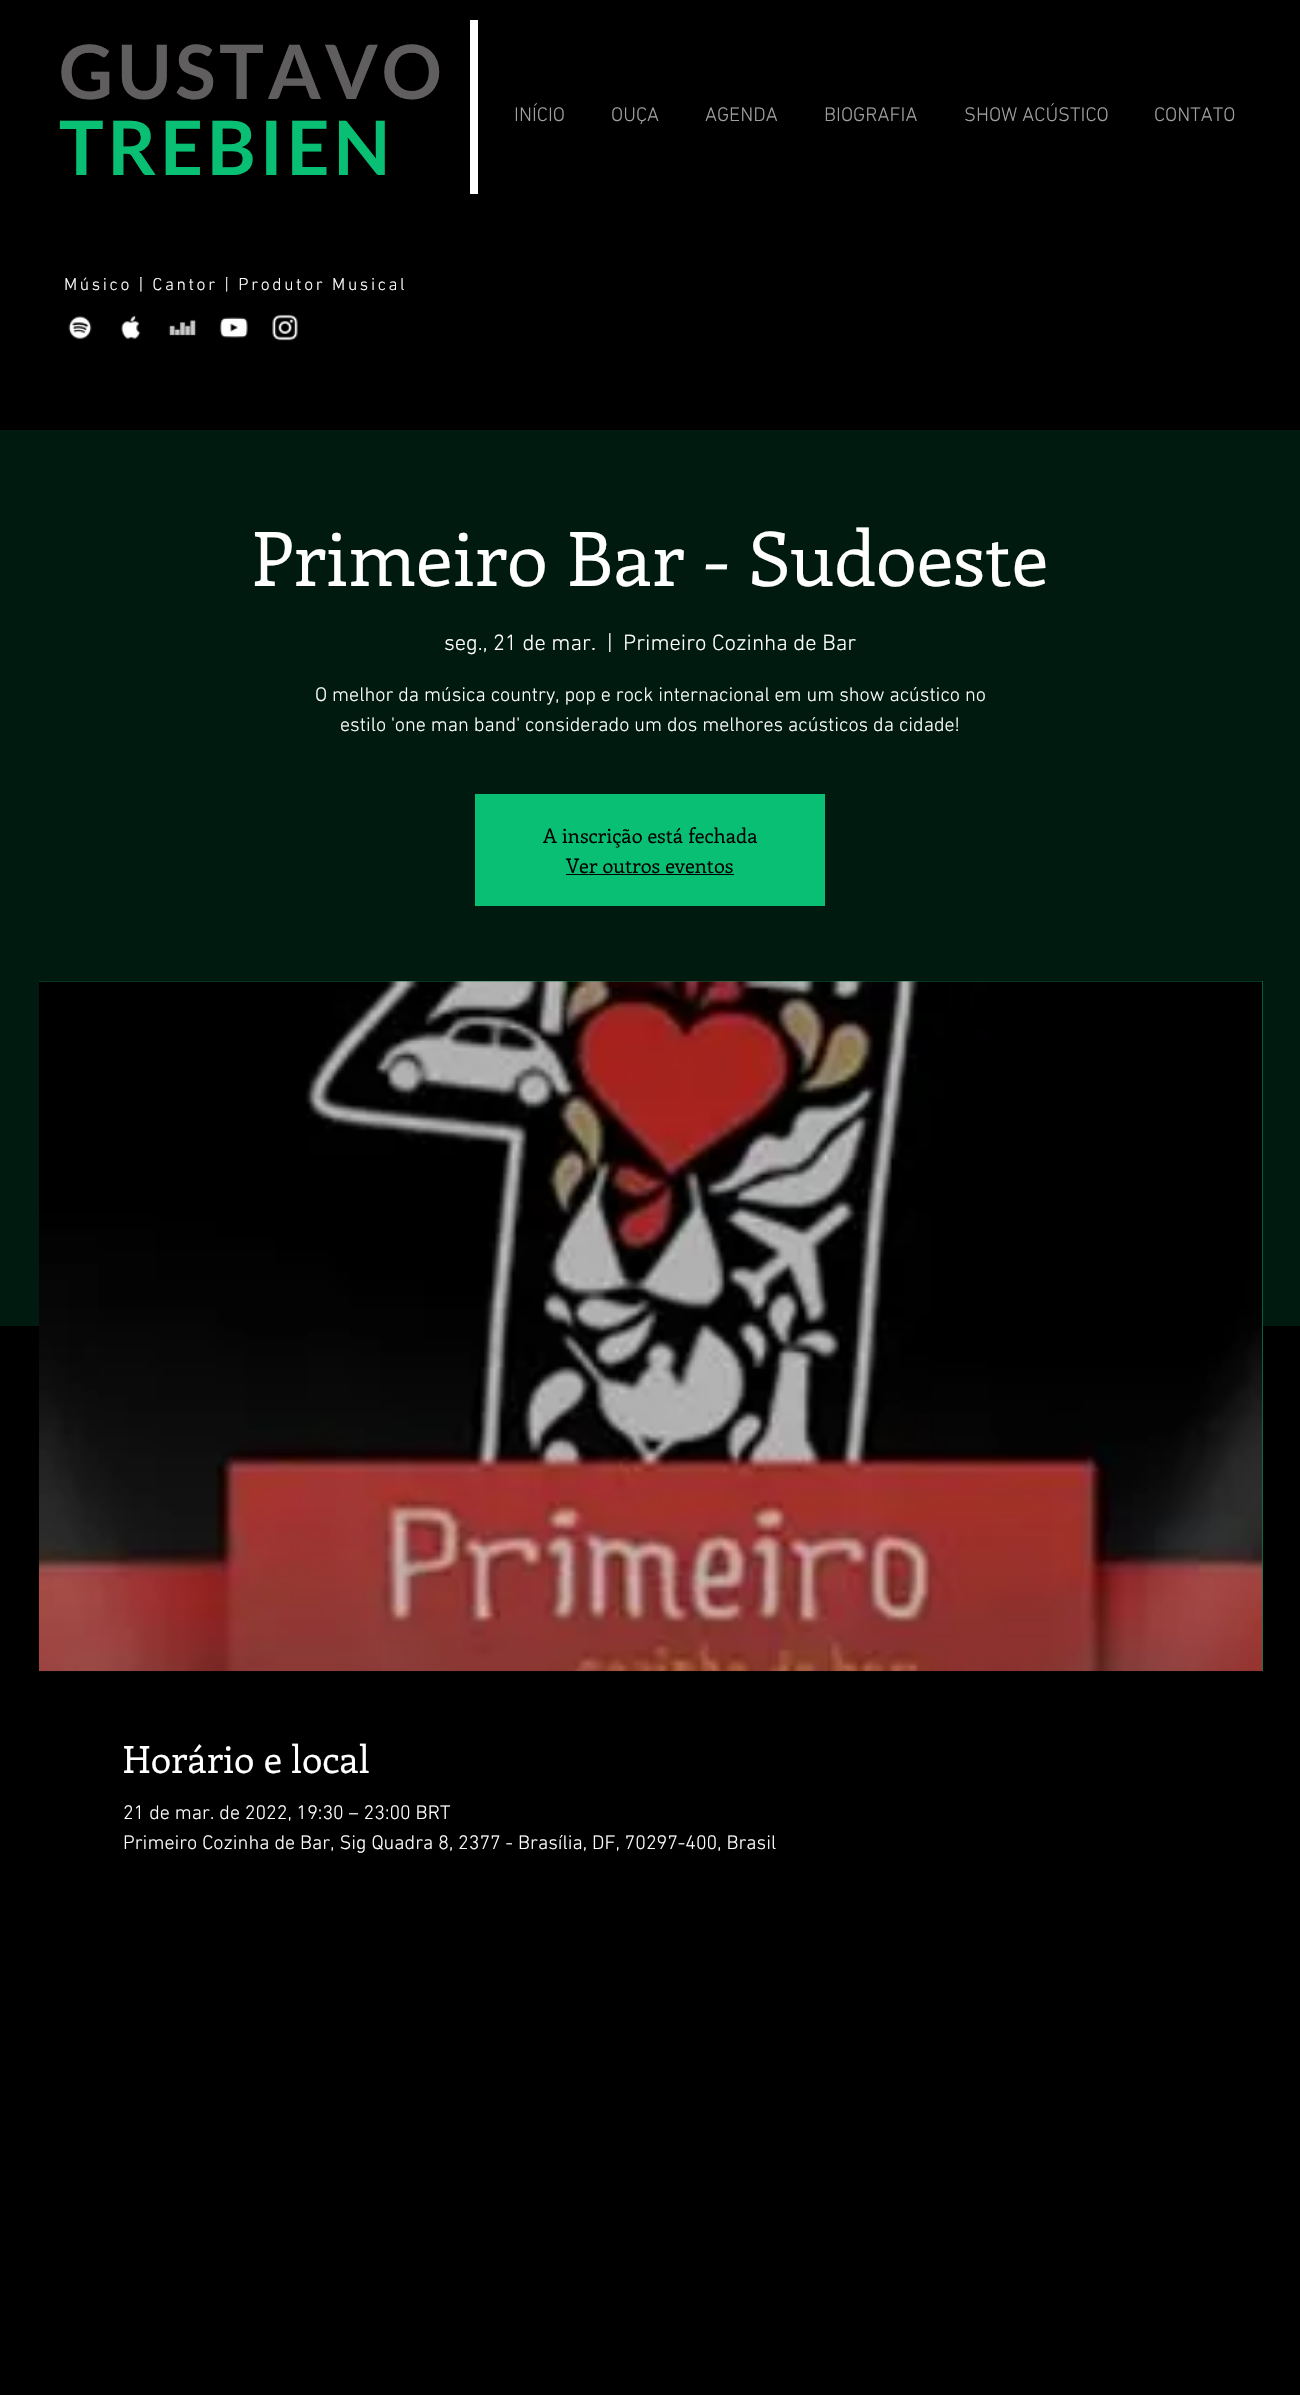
void draw(SkCanvas* canvas) {
	SkPaint paint;
	paint.setAntiAlias(true);
	auto spacedText = [&](const char* s, float x, float y, const SkFont& font, const SkPaint& ink, float letter, float word) {
		std::vector<SkGlyphID> glyphs(font.countText(s, strlen(s), SkTextEncoding::kUTF8));
		std::vector<float> xs(glyphs.size());
		font.textToGlyphs(s, strlen(s), SkTextEncoding::kUTF8, glyphs);
		font.getXPos(glyphs, xs, x);
		float extra = 0;
		for (size_t i = 0; i < glyphs.size(); i++) {
			xs[i] += extra;
			extra += letter + word * (glyphs[i] == font.unicharToGlyph(' '));
		}
		canvas->drawTextBlob(SkTextBlob::MakeFromPosHGlyphs(glyphs, xs, y, font), 0, 0, ink);
	};
	canvas->clear(0xff000000);
	SkFont f1(fontMgr->matchFamilyStyle("Lato", SkFontStyle::Bold()), 75);
	f1.setSubpixel(true);
	paint.setColor(0xff605e5e);
	spacedText("GUSTAVO", 59, 99, f1, paint, 3.75, 0);
	paint.setColor(0xff08bf73);
	spacedText("TREBIEN", 59, 175, f1, paint, 3.75, 0);
	paint.setColor(0xffffffff);
	canvas->drawRect(SkRect::MakeXYWH(470, 20, 8, 174), paint);
	SkFont f2(fontMgr->matchFamilyStyle("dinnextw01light", SkFontStyle(300, SkFontStyle::kNormal_Width, SkFontStyle::kUpright_Slant)), 20);
	f2.setSubpixel(true);
	paint.setColor(0xffa0a09f);
	canvas->drawString("INÍCIO", 514, 121, f2, paint);
	canvas->drawString("OUÇA", 611, 121, f2, paint);
	canvas->drawString("AGENDA", 705, 121, f2, paint);
	canvas->drawString("BIOGRAFIA", 824, 121, f2, paint);
	canvas->drawString("SHOW ACÚSTICO", 964, 121, f2, paint);
	canvas->drawString("CONTATO", 1154, 121, f2, paint);
	SkFont f3(fontMgr->matchFamilyStyle("dinnextw01light", SkFontStyle(300, SkFontStyle::kNormal_Width, SkFontStyle::kUpright_Slant)), 17.5);
	f3.setSubpixel(true);
	paint.setColor(0xffffffff);
	spacedText("Músico | Cantor | Produtor Musical", 64, 290, f3, paint, 2.6, 0);
	canvas->drawImageRect(SkImages::DeferredFromEncodedData(SkData::MakeFromFileName("img1.png")), SkRect::MakeXYWH(68, 316, 24, 23), SkSamplingOptions());
	canvas->drawImageRect(SkImages::DeferredFromEncodedData(SkData::MakeFromFileName("img2.png")), SkRect::MakeXYWH(121, 316, 20, 23), SkSamplingOptions());
	canvas->drawImageRect(SkImages::DeferredFromEncodedData(SkData::MakeFromFileName("img3.png")), SkRect::MakeXYWH(168, 319, 29, 17), SkSamplingOptions());
	canvas->drawImageRect(SkImages::DeferredFromEncodedData(SkData::MakeFromFileName("img4.png")), SkRect::MakeXYWH(219, 317, 29, 21), SkSamplingOptions());
	canvas->drawImageRect(SkImages::DeferredFromEncodedData(SkData::MakeFromFileName("img5.png")), SkRect::MakeXYWH(272, 314, 26, 27), SkSamplingOptions());
	paint.setColor(0xff011a0f);
	canvas->drawRect(SkRect::MakeXYWH(0, 430, 1300, 896), paint);
	SkFont f4(fontMgr->matchFamilyStyle("Enriqueta", SkFontStyle::Normal()), 75);
	f4.setSubpixel(true);
	paint.setColor(0xffffffff);
	canvas->drawString("Primeiro Bar - Sudoeste", 251, 586, f4, paint);
	SkFont f5(fontMgr->matchFamilyStyle("dinnextw01light", SkFontStyle(300, SkFontStyle::kNormal_Width, SkFontStyle::kUpright_Slant)), 22.5);
	f5.setSubpixel(true);
	canvas->drawString("seg., 21 de mar.", 444, 650, f5, paint);
	canvas->drawString("|", 607, 650, f5, paint);
	canvas->drawString("Primeiro Cozinha de Bar", 623, 650, f5, paint);
	canvas->drawString("O melhor da música country, pop e rock internacional em um show acústico no", 315, 701, f2, paint);
	canvas->drawString("estilo 'one man band' considerado um dos melhores acústicos da cidade!", 340, 731, f2, paint);
	paint.setColor(0xff08bf73);
	canvas->drawRect(SkRect::MakeXYWH(475, 794, 350, 112), paint);
	SkFont f6(fontMgr->matchFamilyStyle("Enriqueta", SkFontStyle::Normal()), 20);
	f6.setSubpixel(true);
	paint.setColor(0xff000000);
	canvas->drawString("A inscrição está fechada", 543, 843, f6, paint);
	canvas->drawString("Ver outros eventos", 566, 873, f6, paint);
	canvas->drawRect(SkRect::MakeXYWH(566, 874, 168, 1), paint);
	paint.setColor(0xff05804d);
	canvas->drawRect(SkRect::MakeXYWH(39, 981, 1224, 690), paint);
	canvas->drawImageRect(SkImages::DeferredFromEncodedData(SkData::MakeFromFileName("img6.png")), SkRect::MakeXYWH(38, 981, 1225, 691), SkSamplingOptions());
	SkFont f7(fontMgr->matchFamilyStyle("Enriqueta", SkFontStyle::Normal()), 37.5);
	f7.setSubpixel(true);
	paint.setColor(0xffffffff);
	canvas->drawString("Horário e local", 123, 1773, f7, paint);
	canvas->drawString("21 de mar. de 2022, 19:30 – 23:00 BRT", 123, 1819, f2, paint);
	canvas->drawString("Primeiro Cozinha de Bar, Sig Quadra 8, 2377 - Brasília, DF, 70297-400, Brasil", 123, 1849, f2, paint);
}
